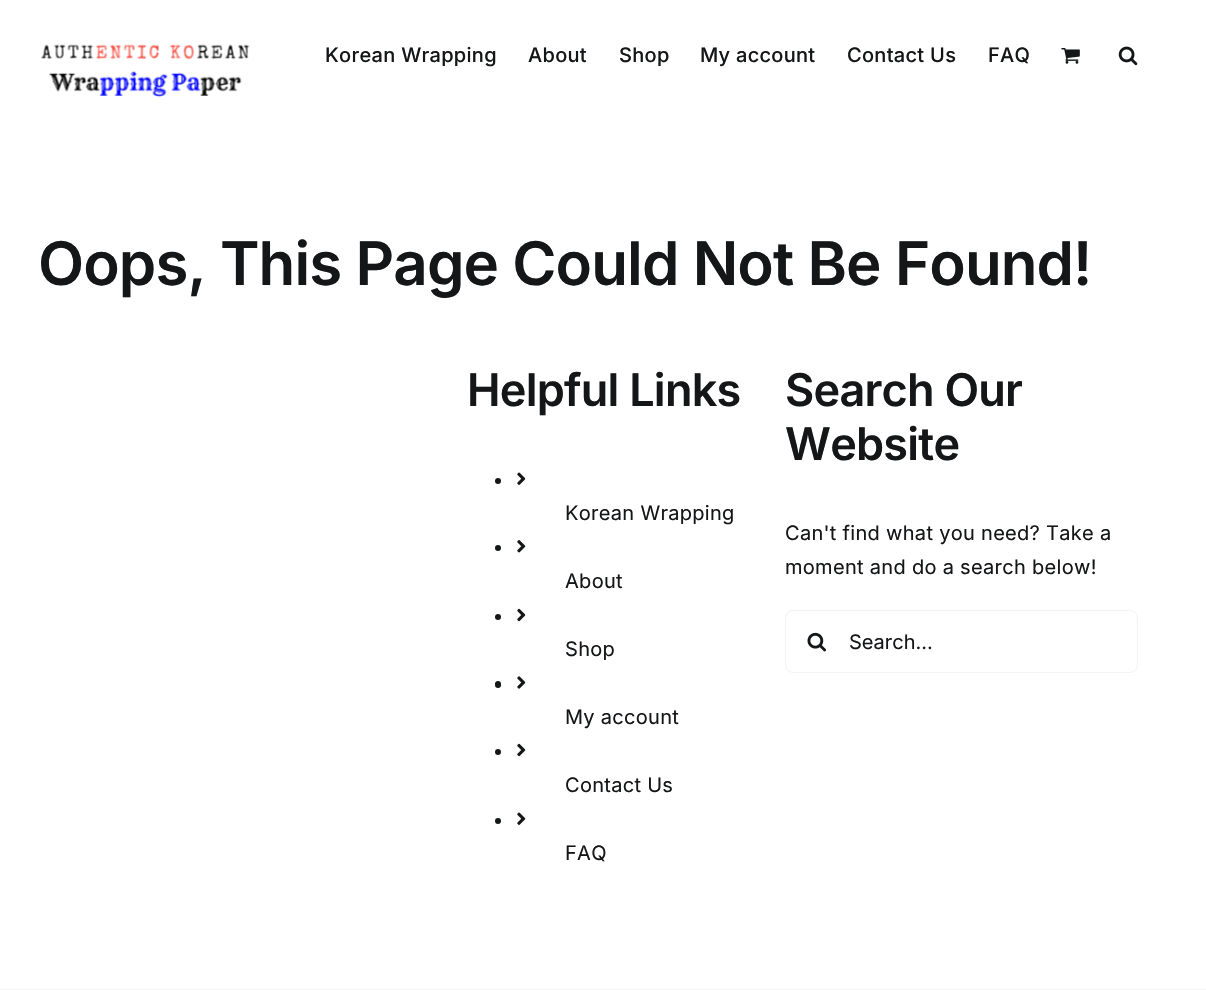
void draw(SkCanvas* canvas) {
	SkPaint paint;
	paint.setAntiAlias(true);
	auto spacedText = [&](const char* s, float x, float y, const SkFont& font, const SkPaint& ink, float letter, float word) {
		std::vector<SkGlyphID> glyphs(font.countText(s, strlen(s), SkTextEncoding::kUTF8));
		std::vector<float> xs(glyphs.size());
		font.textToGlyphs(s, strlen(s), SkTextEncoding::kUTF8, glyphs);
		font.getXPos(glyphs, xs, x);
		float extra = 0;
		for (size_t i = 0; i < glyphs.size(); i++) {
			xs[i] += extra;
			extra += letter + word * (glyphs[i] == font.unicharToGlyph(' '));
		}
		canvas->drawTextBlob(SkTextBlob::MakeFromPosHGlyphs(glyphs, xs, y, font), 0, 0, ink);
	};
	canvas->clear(0xfff2f3f5);
	paint.setColor(0xffffffff);
	canvas->drawRect(SkRect::MakeXYWH(0, 0, 1206, 989), paint);
	canvas->drawImageRect(SkImages::DeferredFromEncodedData(SkData::MakeFromFileName("img1.png")), SkRect::MakeXYWH(40, 44, 210, 53), SkSamplingOptions());
	SkFont f1(fontMgr->matchFamilyStyle("Inter", SkFontStyle(500, SkFontStyle::kNormal_Width, SkFontStyle::kUpright_Slant)), 20);
	f1.setSubpixel(true);
	paint.setColor(0xff141617);
	spacedText("Korean Wrapping", 325, 62, f1, paint, 0.3, 0);
	spacedText("About", 528, 62, f1, paint, 0.3, 0);
	spacedText("Shop", 619, 62, f1, paint, 0.3, 0);
	spacedText("My account", 700, 62, f1, paint, 0.3, 0);
	spacedText("Contact Us", 847, 62, f1, paint, 0.3, 0);
	spacedText("FAQ", 988, 62, f1, paint, 0.3, 0);
	canvas->drawImageRect(SkImages::DeferredFromEncodedData(SkData::MakeFromFileName("img2.png")), SkRect::MakeXYWH(1061, 48, 19, 16), SkSamplingOptions());
	canvas->drawImageRect(SkImages::DeferredFromEncodedData(SkData::MakeFromFileName("img3.png")), SkRect::MakeXYWH(1118, 46, 20, 20), SkSamplingOptions());
	SkFont f2(fontMgr->matchFamilyStyle("Inter", SkFontStyle(600, SkFontStyle::kNormal_Width, SkFontStyle::kUpright_Slant)), 60);
	f2.setSubpixel(true);
	spacedText("Oops, This Page Could Not Be Found!", 38, 285, f2, paint, -0.9, 0);
	SkFont f3(fontMgr->matchFamilyStyle("Inter", SkFontStyle(600, SkFontStyle::kNormal_Width, SkFontStyle::kUpright_Slant)), 45);
	f3.setSubpixel(true);
	spacedText("Helpful Links", 467, 406, f3, paint, -0.75, 0);
	canvas->drawCircle(498, 481, 3, paint);
	canvas->drawImageRect(SkImages::DeferredFromEncodedData(SkData::MakeFromFileName("img4.png")), SkRect::MakeXYWH(517, 472, 9, 13), SkSamplingOptions());
	SkFont f4(fontMgr->matchFamilyStyle("Inter", SkFontStyle::Normal()), 20);
	f4.setSubpixel(true);
	spacedText("Korean Wrapping", 565, 520, f4, paint, 0.3, 0);
	canvas->drawCircle(498, 548, 3, paint);
	canvas->drawImageRect(SkImages::DeferredFromEncodedData(SkData::MakeFromFileName("img5.png")), SkRect::MakeXYWH(517, 540, 9, 13), SkSamplingOptions());
	spacedText("About", 565, 588, f4, paint, 0.3, 0);
	canvas->drawCircle(498, 617, 3, paint);
	canvas->drawImageRect(SkImages::DeferredFromEncodedData(SkData::MakeFromFileName("img6.png")), SkRect::MakeXYWH(517, 608, 9, 14), SkSamplingOptions());
	spacedText("Shop", 565, 656, f4, paint, 0.3, 0);
	canvas->drawRoundRect(SkRect::MakeXYWH(495, 681, 6, 7), 3, 3, paint);
	canvas->drawImageRect(SkImages::DeferredFromEncodedData(SkData::MakeFromFileName("img7.png")), SkRect::MakeXYWH(517, 676, 9, 13), SkSamplingOptions());
	spacedText("My account", 565, 724, f4, paint, 0.3, 0);
	canvas->drawCircle(498, 752, 3, paint);
	canvas->drawImageRect(SkImages::DeferredFromEncodedData(SkData::MakeFromFileName("img6.png")), SkRect::MakeXYWH(517, 743, 9, 14), SkSamplingOptions());
	spacedText("Contact Us", 565, 792, f4, paint, 0.3, 0);
	canvas->drawCircle(498, 821, 3, paint);
	canvas->drawImageRect(SkImages::DeferredFromEncodedData(SkData::MakeFromFileName("img4.png")), SkRect::MakeXYWH(517, 812, 9, 13), SkSamplingOptions());
	spacedText("FAQ", 565, 860, f4, paint, 0.3, 0);
	spacedText("Search Our", 785, 406, f3, paint, -0.75, 0);
	spacedText("Website", 785, 460, f3, paint, -0.75, 0);
	spacedText("Can't find what you need? Take a", 785, 540, f4, paint, 0.3, 0);
	spacedText("moment and do a search below!", 785, 574, f4, paint, 0.3, 0);
	paint.setStroke(true);
	paint.setStrokeWidth(1);
	paint.setColor(0xfff2f3f5);
	canvas->drawRoundRect(SkRect::MakeXYWH(785.5, 610.5, 352, 62), 7.5, 7.5, paint);
	canvas->drawImageRect(SkImages::DeferredFromEncodedData(SkData::MakeFromFileName("img8.png")), SkRect::MakeXYWH(807, 632, 19, 20), SkSamplingOptions());
	paint.setStroke(false);
	paint.setColor(0xff141617);
	canvas->drawString("Search...", 849, 649, f4, paint);
}
